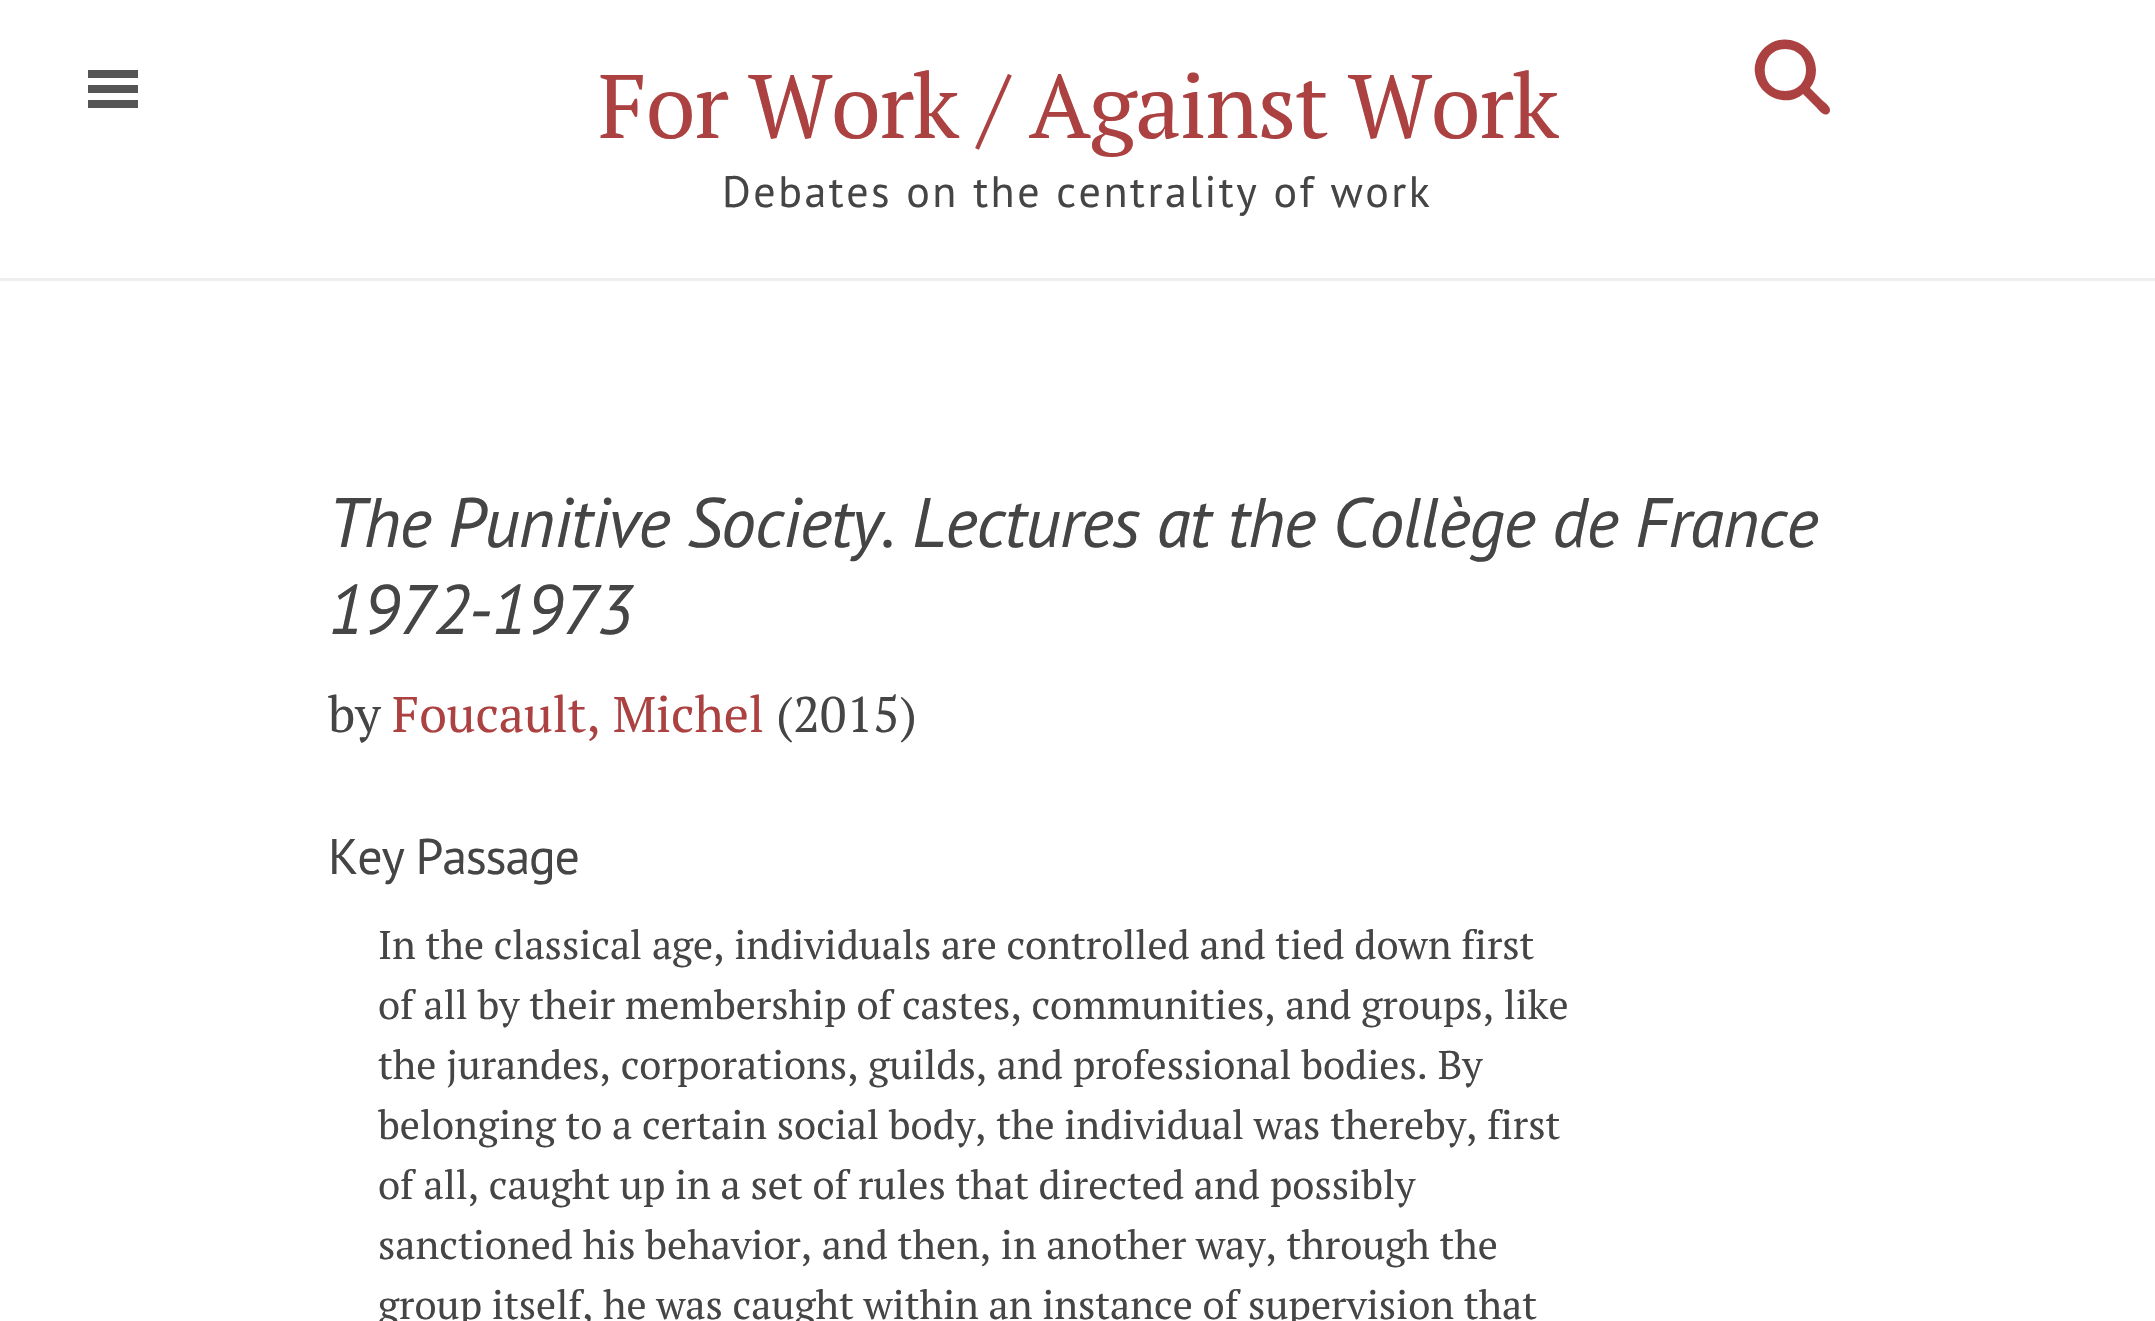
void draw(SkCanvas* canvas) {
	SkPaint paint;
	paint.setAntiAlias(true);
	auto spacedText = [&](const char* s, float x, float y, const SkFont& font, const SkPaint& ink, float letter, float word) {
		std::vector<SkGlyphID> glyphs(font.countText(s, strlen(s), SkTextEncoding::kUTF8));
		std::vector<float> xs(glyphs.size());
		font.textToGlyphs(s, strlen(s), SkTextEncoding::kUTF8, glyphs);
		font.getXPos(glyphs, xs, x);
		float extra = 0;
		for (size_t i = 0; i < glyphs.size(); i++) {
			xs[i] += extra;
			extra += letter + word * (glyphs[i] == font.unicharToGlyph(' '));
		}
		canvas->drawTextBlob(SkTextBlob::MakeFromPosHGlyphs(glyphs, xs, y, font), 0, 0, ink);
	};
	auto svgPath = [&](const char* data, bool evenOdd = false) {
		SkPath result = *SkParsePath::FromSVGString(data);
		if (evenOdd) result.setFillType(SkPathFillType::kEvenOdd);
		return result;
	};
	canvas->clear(0xffffffff);
	paint.setColor(0xff555555);
	canvas->drawRect(SkRect::MakeXYWH(88, 70, 50, 8), paint);
	canvas->drawRect(SkRect::MakeXYWH(88, 85, 50, 8), paint);
	canvas->drawRect(SkRect::MakeXYWH(88, 100, 50, 8), paint);
	paint.setColor(0xffeeeeee);
	canvas->drawRect(SkRect::MakeXYWH(0, 278, 2155, 3), paint);
	SkFont f1(fontMgr->matchFamilyStyle("PT Serif", SkFontStyle::Normal()), 90);
	f1.setSubpixel(true);
	paint.setColor(0xffac4142);
	spacedText("For Work / Against Work", 598, 138, f1, paint, -1.25, 0);
	canvas->drawPath(svgPath("M1816 70C1816 77 1814 83 1810 88L1822 100C1825 103 1833 108 1829 113C1824 118 1818 109 1816 107L1803 94C1793 103 1777 102 1766 93C1760 88 1756 81 1755 73C1754 66 1756 59 1760 53C1777 28 1815 40 1816 70ZM1785 91C1813 91 1813 49 1785 49C1758 49 1758 91 1785 91Z"), paint);
	SkFont f2(fontMgr->matchFamilyStyle("PT Sans", SkFontStyle::Normal()), 44);
	f2.setSubpixel(true);
	paint.setColor(0xff454545);
	spacedText("Debates on the centrality of work", 722, 207, f2, paint, 2.5, 0);
	SkFont f3(fontMgr->matchFamilyStyle("PT Sans", SkFontStyle::Italic()), 70);
	f3.setSubpixel(true);
	spacedText("The Punitive Society. Lectures at the Collège de France", 328, 547, f3, paint, -1.25, 0);
	spacedText("1972-1973", 328, 634, f3, paint, -1.25, 0);
	SkFont f4(fontMgr->matchFamilyStyle("PT Serif", SkFontStyle::Normal()), 50);
	f4.setSubpixel(true);
	canvas->drawString("by", 328, 732, f4, paint);
	paint.setColor(0xffac4142);
	canvas->drawString("Foucault, Michel", 392, 732, f4, paint);
	paint.setColor(0xff454545);
	canvas->drawString("(2015)", 776, 732, f4, paint);
	SkFont f5(fontMgr->matchFamilyStyle("PT Sans", SkFontStyle::Normal()), 50);
	f5.setSubpixel(true);
	spacedText("Key Passage", 328, 874, f5, paint, -1.25, 0);
	SkFont f6(fontMgr->matchFamilyStyle("PT Serif", SkFontStyle::Normal()), 40);
	f6.setSubpixel(true);
	canvas->drawString("In the classical age, individuals are controlled and tied down first", 378, 959, f6, paint);
	canvas->drawString("of all by their membership of castes, communities, and groups, like", 378, 1019, f6, paint);
	canvas->drawString("the jurandes, corporations, guilds, and professional bodies. By", 378, 1079, f6, paint);
	canvas->drawString("belonging to a certain social body, the individual was thereby, first", 378, 1139, f6, paint);
	canvas->drawString("of all, caught up in a set of rules that directed and possibly", 378, 1199, f6, paint);
	canvas->drawString("sanctioned his behavior, and then, in another way, through the", 378, 1259, f6, paint);
	canvas->drawString("group itself, he was caught within an instance of supervision that", 378, 1319, f6, paint);
}
